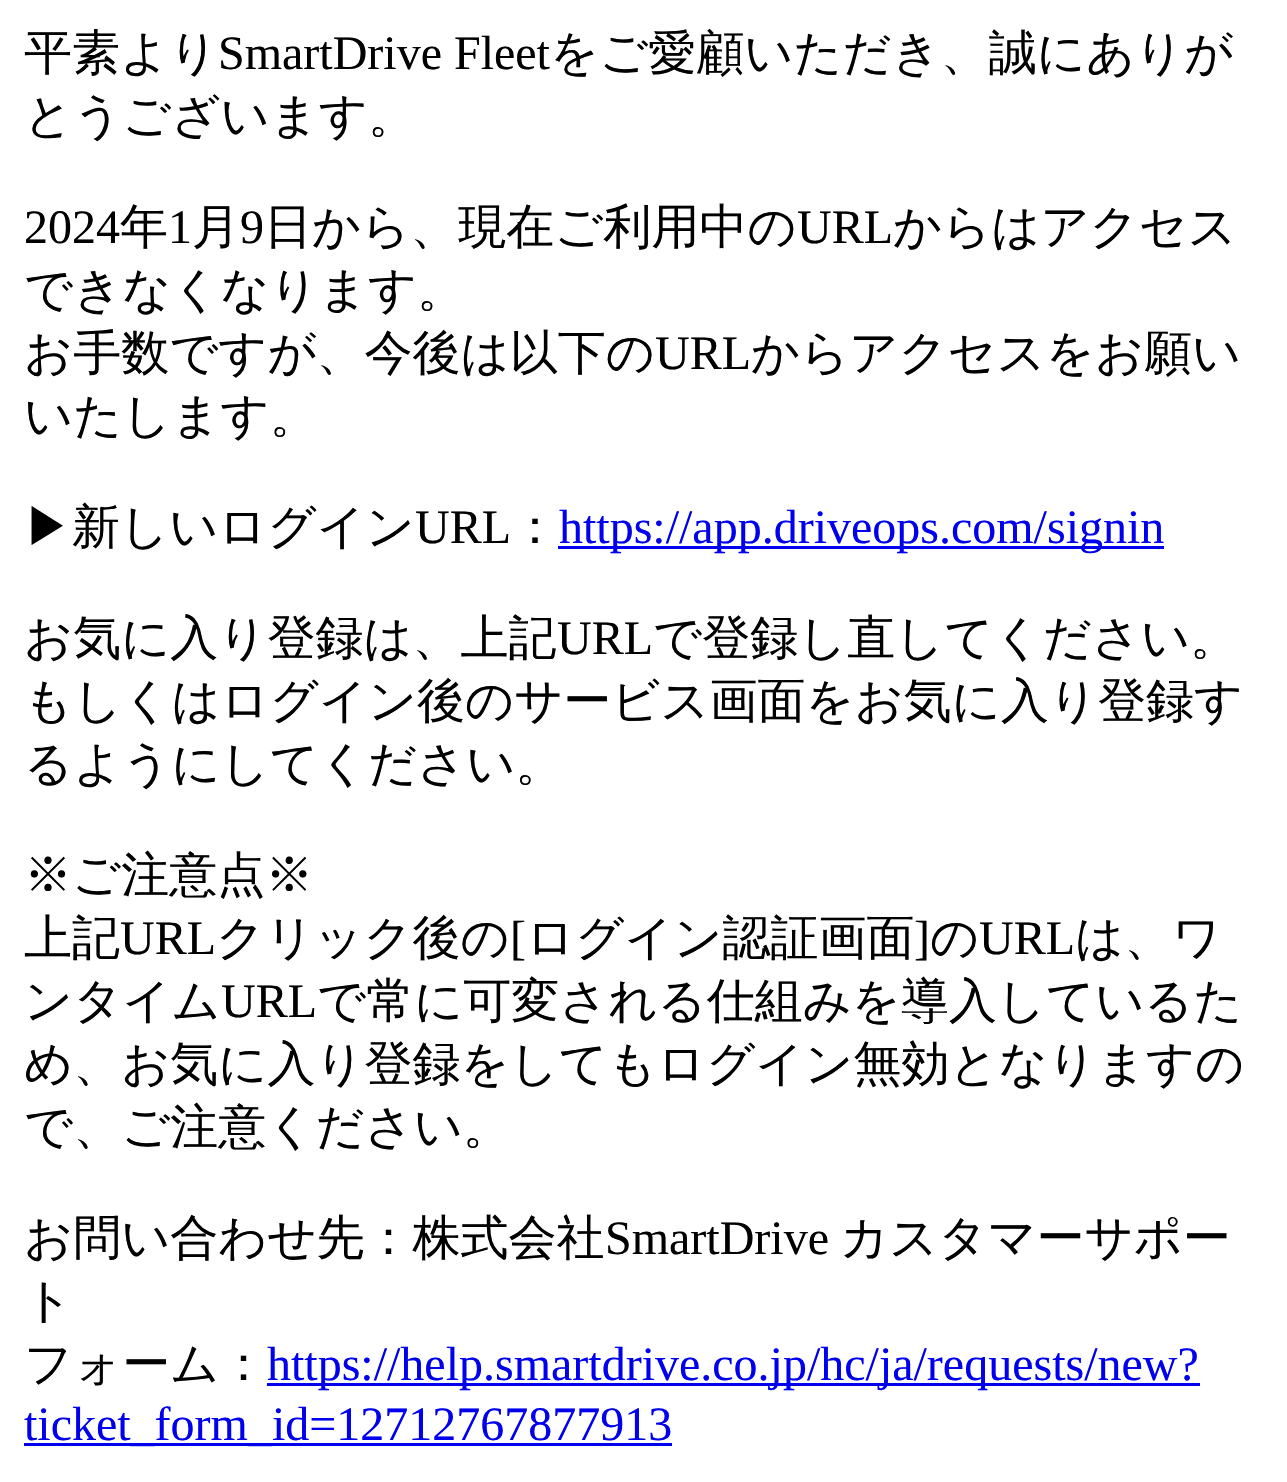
void draw(SkCanvas* canvas) {
	SkPaint paint;
	paint.setAntiAlias(true);
	canvas->clear(0xffffffff);
	SkFont f1(fontMgr->matchFamilyStyle("WenQuanYi Zen Hei", SkFontStyle(500, SkFontStyle::kNormal_Width, SkFontStyle::kUpright_Slant)), 48);
	f1.setSubpixel(true);
	paint.setColor(0xff000000);
	canvas->drawString("平素より", 24, 69, f1, paint);
	SkFont f2(fontMgr->matchFamilyStyle("Liberation Serif", SkFontStyle::Normal()), 48);
	f2.setSubpixel(true);
	canvas->drawString("SmartDrive Fleet", 218, 69, f2, paint);
	canvas->drawString("をご愛顧いただき、誠にありが", 550, 69, f1, paint);
	canvas->drawString("とうございます。", 24, 132, f1, paint);
	canvas->drawString("2024", 24, 243, f2, paint);
	canvas->drawString("年", 120, 243, f1, paint);
	canvas->drawString("1", 168, 243, f2, paint);
	canvas->drawString("月", 192, 243, f1, paint);
	canvas->drawString("9", 240, 243, f2, paint);
	canvas->drawString("日から、現在ご利用中の", 264, 243, f1, paint);
	canvas->drawString("URL", 797, 243, f2, paint);
	canvas->drawString("からはアクセス", 893, 243, f1, paint);
	canvas->drawString("できなくなります。", 24, 306, f1, paint);
	canvas->drawString("お手数ですが、今後は以下の", 24, 369, f1, paint);
	canvas->drawString("URL", 655, 369, f2, paint);
	canvas->drawString("からアクセスをお願い", 751, 369, f1, paint);
	canvas->drawString("いたします。", 24, 432, f1, paint);
	canvas->drawString("▶新しいログイン", 24, 543, f1, paint);
	canvas->drawString("URL", 415, 543, f2, paint);
	canvas->drawString("：", 511, 543, f1, paint);
	paint.setColor(0xff0000ee);
	canvas->drawRect(SkRect::MakeXYWH(558, 546, 606, 3), paint);
	canvas->drawString("https://app.driveops.com/signin", 559, 543, f2, paint);
	paint.setColor(0xff000000);
	canvas->drawString("お気に入り登録は、上記", 24, 654, f1, paint);
	canvas->drawString("URL", 557, 654, f2, paint);
	canvas->drawString("で登録し直してください。", 653, 654, f1, paint);
	canvas->drawString("もしくはログイン後のサービス画面をお気に入り登録す", 24, 717, f1, paint);
	canvas->drawString("るようにしてください。", 24, 780, f1, paint);
	canvas->drawString("※ご注意点※", 24, 891, f1, paint);
	canvas->drawString("上記", 24, 954, f1, paint);
	canvas->drawString("URL", 120, 954, f2, paint);
	canvas->drawString("クリック後の", 216, 954, f1, paint);
	canvas->drawString("[", 510, 954, f2, paint);
	canvas->drawString("ログイン認証画面", 526, 954, f1, paint);
	canvas->drawString("]", 914, 954, f2, paint);
	canvas->drawString("の", 930, 954, f1, paint);
	canvas->drawString("URL", 979, 954, f2, paint);
	canvas->drawString("は、ワ", 1075, 954, f1, paint);
	canvas->drawString("ンタイム", 24, 1017, f1, paint);
	canvas->drawString("URL", 221, 1017, f2, paint);
	canvas->drawString("で常に可変される仕組みを導入しているた", 317, 1017, f1, paint);
	canvas->drawString("め、お気に入り登録をしてもログイン無効となりますの", 24, 1080, f1, paint);
	canvas->drawString("で、ご注意ください。", 24, 1143, f1, paint);
	canvas->drawString("お問い合わせ先：株式会社", 24, 1254, f1, paint);
	canvas->drawString("SmartDrive", 605, 1254, f2, paint);
	canvas->drawString("カスタマーサポー", 840, 1254, f1, paint);
	canvas->drawString("ト", 24, 1317, f1, paint);
	canvas->drawString("フォーム：", 24, 1380, f1, paint);
	paint.setColor(0xff0000ee);
	canvas->drawRect(SkRect::MakeXYWH(267, 1383, 933, 3), paint);
	canvas->drawString("https://help.smartdrive.co.jp/hc/ja/requests/new?", 267, 1380, f2, paint);
	canvas->drawRect(SkRect::MakeXYWH(24, 1443, 648, 3), paint);
	canvas->drawString("ticket_form_id=12712767877913", 24, 1440, f2, paint);
}
